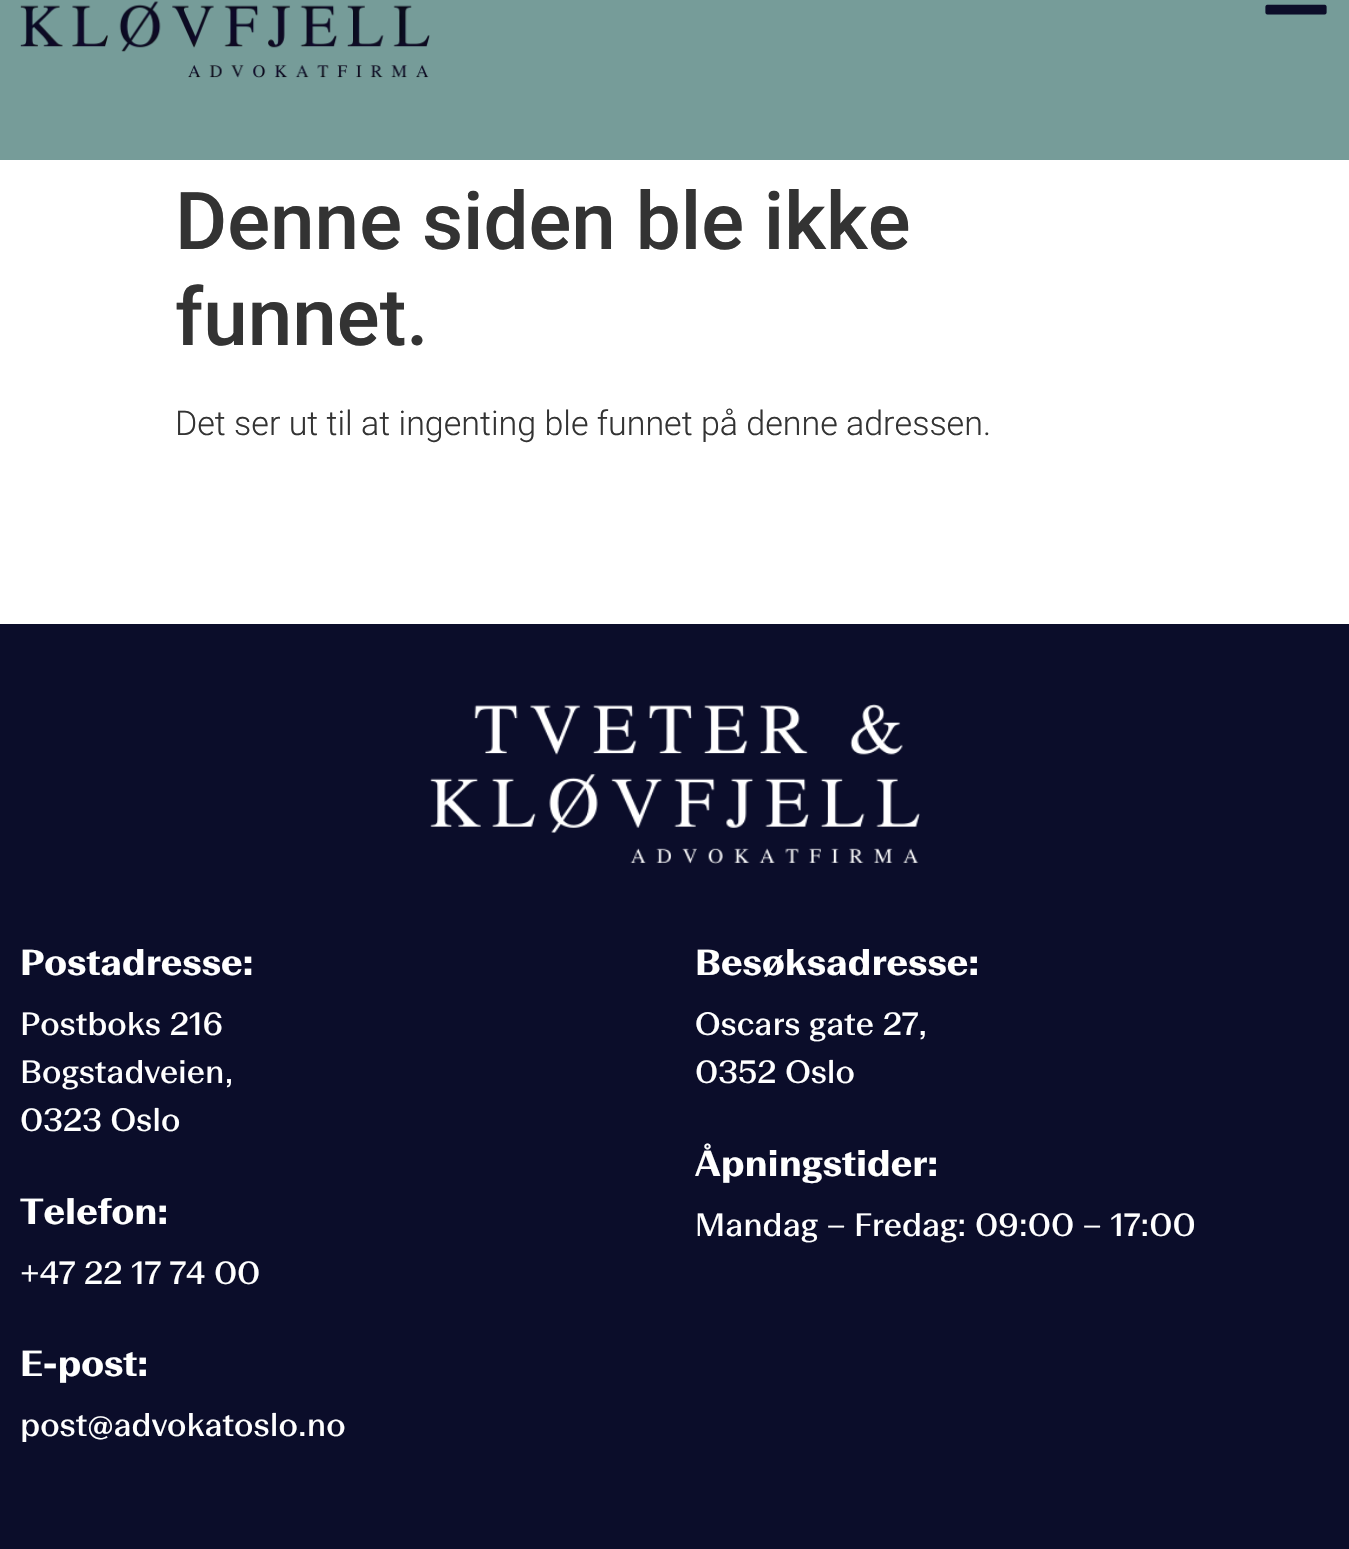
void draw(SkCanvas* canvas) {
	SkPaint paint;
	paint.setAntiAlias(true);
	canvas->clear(0xffffffff);
	paint.setColor(0xff769c99);
	canvas->drawRect(SkRect::MakeXYWH(0, 0, 1349, 160), paint);
	canvas->drawImageRect(SkImages::DeferredFromEncodedData(SkData::MakeFromFileName("img1.png")), SkRect::MakeXYWH(20, 1, 410, 77), SkSamplingOptions());
	canvas->drawImageRect(SkImages::DeferredFromEncodedData(SkData::MakeFromFileName("img2.png")), SkRect::MakeXYWH(1265, 4, 62, 11), SkSamplingOptions());
	SkFont f1(fontMgr->matchFamilyStyle("Roboto", SkFontStyle(500, SkFontStyle::kNormal_Width, SkFontStyle::kUpright_Slant)), 80);
	f1.setSubpixel(true);
	paint.setColor(0xff333333);
	canvas->drawString("Denne siden ble ikke", 175, 249, f1, paint);
	canvas->drawString("funnet.", 175, 345, f1, paint);
	SkFont f2(fontMgr->matchFamilyStyle("Roboto", SkFontStyle(300, SkFontStyle::kNormal_Width, SkFontStyle::kUpright_Slant)), 34);
	f2.setSubpixel(true);
	canvas->drawString("Det ser ut til at ingenting ble funnet på denne adressen.", 175, 435, f2, paint);
	paint.setColor(0xff0b0d2a);
	canvas->drawRect(SkRect::MakeXYWH(0, 624, 1349, 925), paint);
	canvas->drawImageRect(SkImages::DeferredFromEncodedData(SkData::MakeFromFileName("img3.png")), SkRect::MakeXYWH(430, 704, 490, 160), SkSamplingOptions());
	SkFont f3(fontMgr->matchFamilyStyle("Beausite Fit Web", SkFontStyle::Bold()), 36);
	f3.setSubpixel(true);
	paint.setColor(0xffffffff);
	canvas->drawString("Postadresse:", 20, 975, f3, paint);
	SkFont f4(fontMgr->matchFamilyStyle("Beausite Fit Web", SkFontStyle::Normal()), 32);
	f4.setSubpixel(true);
	canvas->drawString("Postboks 216", 20, 1035, f4, paint);
	canvas->drawString("Bogstadveien,", 20, 1083, f4, paint);
	canvas->drawString("0323 Oslo", 20, 1131, f4, paint);
	canvas->drawString("Telefon:", 20, 1224, f3, paint);
	canvas->drawString("+47 22 17 74 00", 20, 1284, f4, paint);
	canvas->drawString("E-post:", 20, 1376, f3, paint);
	canvas->drawString("post@advokatoslo.no", 20, 1436, f4, paint);
	canvas->drawString("Besøksadresse:", 695, 975, f3, paint);
	canvas->drawString("Oscars gate 27,", 695, 1035, f4, paint);
	canvas->drawString("0352 Oslo", 695, 1083, f4, paint);
	canvas->drawString("Åpningstider:", 695, 1176, f3, paint);
	canvas->drawString("Mandag – Fredag: 09:00 – 17:00", 695, 1236, f4, paint);
}
